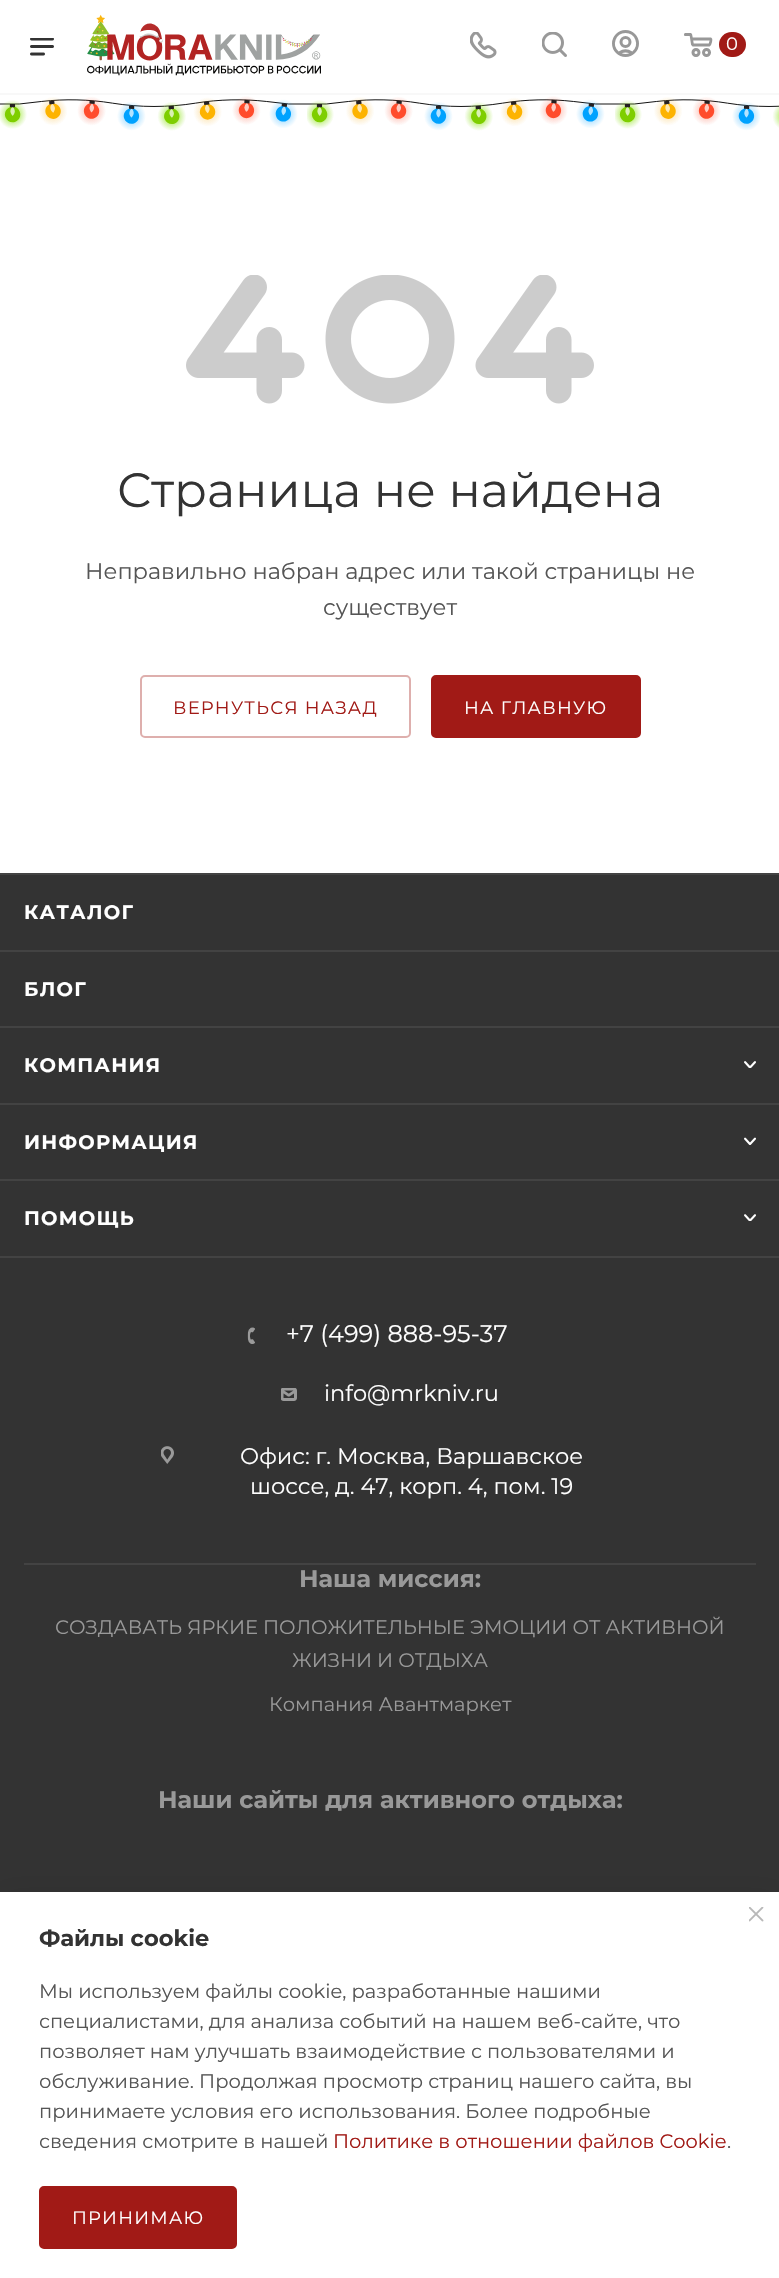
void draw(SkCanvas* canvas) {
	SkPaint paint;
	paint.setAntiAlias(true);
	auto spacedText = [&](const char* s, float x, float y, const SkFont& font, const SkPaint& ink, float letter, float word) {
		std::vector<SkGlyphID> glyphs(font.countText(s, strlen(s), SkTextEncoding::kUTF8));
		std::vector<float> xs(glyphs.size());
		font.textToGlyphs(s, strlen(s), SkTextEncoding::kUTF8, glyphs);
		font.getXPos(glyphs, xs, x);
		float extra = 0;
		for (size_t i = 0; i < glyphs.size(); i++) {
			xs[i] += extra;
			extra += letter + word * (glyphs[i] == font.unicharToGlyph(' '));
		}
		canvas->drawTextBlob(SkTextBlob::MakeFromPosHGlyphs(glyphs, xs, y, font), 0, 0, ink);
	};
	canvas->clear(0xffffffff);
	paint.setColor(0xfff8f8f8);
	canvas->drawRect(SkRect::MakeXYWH(0, 93, 779, 2), paint);
	canvas->drawImageRect(SkImages::DeferredFromEncodedData(SkData::MakeFromFileName("img1.png")), SkRect::MakeXYWH(30, 38, 24, 18), SkSamplingOptions());
	canvas->drawImageRect(SkImages::DeferredFromEncodedData(SkData::MakeFromFileName("img2.png")), SkRect::MakeXYWH(87, 14, 234, 62), SkSamplingOptions());
	canvas->drawImageRect(SkImages::DeferredFromEncodedData(SkData::MakeFromFileName("img3.png")), SkRect::MakeXYWH(470, 32, 27, 27), SkSamplingOptions());
	canvas->drawImageRect(SkImages::DeferredFromEncodedData(SkData::MakeFromFileName("img4.png")), SkRect::MakeXYWH(542, 32, 25, 25), SkSamplingOptions());
	canvas->drawImageRect(SkImages::DeferredFromEncodedData(SkData::MakeFromFileName("img5.png")), SkRect::MakeXYWH(612, 30, 27, 27), SkSamplingOptions());
	canvas->drawImageRect(SkImages::DeferredFromEncodedData(SkData::MakeFromFileName("img6.png")), SkRect::MakeXYWH(684, 33, 29, 24), SkSamplingOptions());
	paint.setColor(0xffa11a16);
	canvas->drawRoundRect(SkRect::MakeXYWH(719, 32, 27, 25), 12.5, 12.5, paint);
	SkFont f1(fontMgr->matchFamilyStyle("Montserrat", SkFontStyle::Normal()), 18);
	f1.setSubpixel(true);
	paint.setColor(0xffffffff);
	canvas->drawString("0", 726, 50, f1, paint);
	canvas->drawImageRect(SkImages::DeferredFromEncodedData(SkData::MakeFromFileName("img7.png")), SkRect::MakeXYWH(0, 96, 779, 35), SkSamplingOptions());
	canvas->drawImageRect(SkImages::DeferredFromEncodedData(SkData::MakeFromFileName("img8.png")), SkRect::MakeXYWH(186, 275, 408, 129), SkSamplingOptions());
	SkFont f2(fontMgr->matchFamilyStyle("Montserrat", SkFontStyle::Normal()), 48);
	f2.setSubpixel(true);
	paint.setColor(0xff333333);
	canvas->drawString("Страница не найдена", 117, 507, f2, paint);
	SkFont f3(fontMgr->matchFamilyStyle("Montserrat", SkFontStyle::Normal()), 22.5);
	f3.setSubpixel(true);
	paint.setColor(0xff555555);
	canvas->drawString("Неправильно набран адрес или такой страницы не", 85, 579, f3, paint);
	canvas->drawString("существует", 323, 615, f3, paint);
	paint.setStroke(true);
	paint.setStrokeWidth(2);
	paint.setColor(0xffdeafad);
	canvas->drawRoundRect(SkRect::MakeXYWH(141, 676, 269, 61), 4, 4, paint);
	paint.setStroke(false);
	paint.setColor(0xffa11a16);
	spacedText("ВЕРНУТЬСЯ НАЗАД", 173, 714, f1, paint, 1.25, 0);
	canvas->drawRoundRect(SkRect::MakeXYWH(432, 676, 208, 61), 4, 4, paint);
	paint.setStroke(true);
	canvas->drawRoundRect(SkRect::MakeXYWH(432, 676, 208, 61), 4, 4, paint);
	paint.setStroke(false);
	paint.setColor(0xffffffff);
	spacedText("НА ГЛАВНУЮ", 464, 714, f1, paint, 1.25, 0);
	paint.setColor(0xff333333);
	canvas->drawRect(SkRect::MakeXYWH(0, 875, 779, 1017), paint);
	paint.setColor(0xff434343);
	canvas->drawRect(SkRect::MakeXYWH(0, 873, 779, 2), paint);
	canvas->drawRect(SkRect::MakeXYWH(0, 950, 779, 2), paint);
	SkFont f4(fontMgr->matchFamilyStyle("Montserrat", SkFontStyle::Bold()), 19.5);
	f4.setSubpixel(true);
	paint.setColor(0xffffffff);
	spacedText("КАТАЛОГ", 24, 919, f4, paint, 1.25, 0);
	paint.setColor(0xff434343);
	canvas->drawRect(SkRect::MakeXYWH(0, 1026, 779, 2), paint);
	paint.setColor(0xffffffff);
	spacedText("БЛОГ", 24, 996, f4, paint, 1.25, 0);
	paint.setColor(0xff434343);
	canvas->drawRect(SkRect::MakeXYWH(0, 1103, 779, 2), paint);
	paint.setColor(0xffffffff);
	spacedText("КОМПАНИЯ", 24, 1072, f4, paint, 1.25, 0);
	canvas->drawImageRect(SkImages::DeferredFromEncodedData(SkData::MakeFromFileName("img9.png")), SkRect::MakeXYWH(744, 1061, 12, 7), SkSamplingOptions());
	paint.setColor(0xff434343);
	canvas->drawRect(SkRect::MakeXYWH(0, 1179, 779, 2), paint);
	paint.setColor(0xffffffff);
	spacedText("ИНФОРМАЦИЯ", 24, 1149, f4, paint, 1.25, 0);
	canvas->drawImageRect(SkImages::DeferredFromEncodedData(SkData::MakeFromFileName("img10.png")), SkRect::MakeXYWH(744, 1137, 12, 8), SkSamplingOptions());
	paint.setColor(0xff434343);
	canvas->drawRect(SkRect::MakeXYWH(0, 1256, 779, 2), paint);
	paint.setColor(0xffffffff);
	spacedText("ПОМОЩЬ", 24, 1225, f4, paint, 1.25, 0);
	canvas->drawImageRect(SkImages::DeferredFromEncodedData(SkData::MakeFromFileName("img11.png")), SkRect::MakeXYWH(744, 1214, 12, 7), SkSamplingOptions());
	canvas->drawImageRect(SkImages::DeferredFromEncodedData(SkData::MakeFromFileName("img12.png")), SkRect::MakeXYWH(247, 1327, 8, 17), SkSamplingOptions());
	SkFont f5(fontMgr->matchFamilyStyle("Montserrat", SkFontStyle::Normal()), 24);
	f5.setSubpixel(true);
	canvas->drawString("+7 (499) 888-95-37", 286, 1342, f5, paint);
	canvas->drawImageRect(SkImages::DeferredFromEncodedData(SkData::MakeFromFileName("img13.png")), SkRect::MakeXYWH(281, 1388, 16, 13), SkSamplingOptions());
	canvas->drawString("info@mrkniv.ru", 324, 1401, f3, paint);
	canvas->drawImageRect(SkImages::DeferredFromEncodedData(SkData::MakeFromFileName("img14.png")), SkRect::MakeXYWH(161, 1446, 13, 18), SkSamplingOptions());
	canvas->drawString("Офис: г. Москва, Варшавское", 240, 1464, f3, paint);
	canvas->drawString("шоссе, д. 47, корп. 4, пом. 19", 250, 1494, f3, paint);
	paint.setColor(0xff434343);
	canvas->drawRect(SkRect::MakeXYWH(24, 1563, 732, 2), paint);
	SkFont f6(fontMgr->matchFamilyStyle("Montserrat", SkFontStyle::Bold()), 24);
	f6.setSubpixel(true);
	paint.setColor(0xff999999);
	canvas->drawString("Наша миссия:", 299, 1587, f6, paint);
	SkFont f7(fontMgr->matchFamilyStyle("Montserrat", SkFontStyle::Normal()), 19.5);
	f7.setSubpixel(true);
	canvas->drawString("СОЗДАВАТЬ ЯРКИЕ ПОЛОЖИТЕЛЬНЫЕ ЭМОЦИИ ОТ АКТИВНОЙ", 55, 1634, f7, paint);
	canvas->drawString("ЖИЗНИ И ОТДЫХА", 292, 1667, f7, paint);
	canvas->drawString("Компания Авантмаркет", 269, 1711, f7, paint);
	canvas->drawString("Наши сайты для активного отдыха:", 158, 1808, f6, paint);
	paint.setColor(0x1f000000);
	paint.setMaskFilter(SkMaskFilter::MakeBlur(kNormal_SkBlurStyle, 15));
	canvas->drawRect(SkRect::MakeXYWH(0, 1899, 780, 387), paint);
	paint.setMaskFilter(nullptr);
	paint.setColor(0xffffffff);
	canvas->drawRect(SkRect::MakeXYWH(0, 1892, 779, 386), paint);
	canvas->drawImageRect(SkImages::DeferredFromEncodedData(SkData::MakeFromFileName("img15.png")), SkRect::MakeXYWH(749, 1907, 15, 15), SkSamplingOptions());
	SkFont f8(fontMgr->matchFamilyStyle("Montserrat", SkFontStyle::Bold()), 22.5);
	f8.setSubpixel(true);
	paint.setColor(0xff333333);
	canvas->drawString("Файлы cookie", 39, 1946, f8, paint);
	paint.setColor(0xff555555);
	canvas->drawString("Мы используем файлы cookie, разработанные нашими", 39, 1998, f7, paint);
	canvas->drawString("специалистами, для анализа событий на нашем веб-сайте, что", 39, 2028, f7, paint);
	canvas->drawString("позволяет нам улучшать взаимодействие с пользователями и", 39, 2058, f7, paint);
	canvas->drawString("обслуживание. Продолжая просмотр страниц нашего сайта, вы", 39, 2088, f7, paint);
	canvas->drawString("принимаете условия его использования. Более подробные", 39, 2118, f7, paint);
	canvas->drawString("сведения смотрите в нашей", 39, 2148, f7, paint);
	paint.setColor(0xffa11a16);
	canvas->drawString("Политике в отношении файлов Cookie", 333, 2148, f7, paint);
	paint.setColor(0xff555555);
	canvas->drawString(".", 727, 2148, f7, paint);
	paint.setColor(0xffa11a16);
	canvas->drawRoundRect(SkRect::MakeXYWH(40, 2187, 196, 61), 4, 4, paint);
	paint.setStroke(true);
	canvas->drawRoundRect(SkRect::MakeXYWH(40, 2187, 196, 61), 4, 4, paint);
	paint.setStroke(false);
	paint.setColor(0xffffffff);
	spacedText("ПРИНИМАЮ", 72, 2224, f1, paint, 1.25, 0);
}
